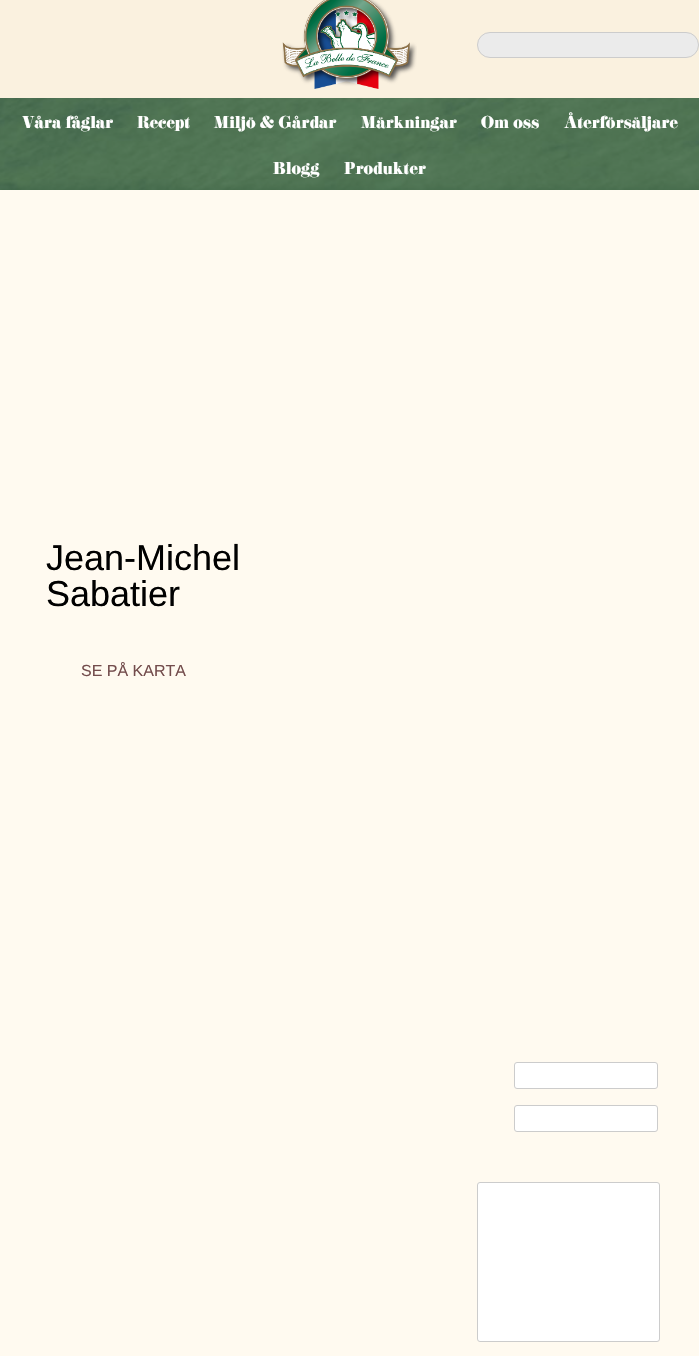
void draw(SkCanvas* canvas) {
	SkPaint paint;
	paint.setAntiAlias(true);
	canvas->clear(0xffffffff);
	canvas->drawImageRect(SkImages::DeferredFromEncodedData(SkData::MakeFromFileName("img1.png")), SkRect::MakeXYWH(0, 98, 699, 92), SkSamplingOptions());
	paint.setColor(0xfffaf1df);
	canvas->drawRect(SkRect::MakeXYWH(0, 0, 699, 98), paint);
	canvas->drawImageRect(SkImages::DeferredFromEncodedData(SkData::MakeFromFileName("img2.png")), SkRect::MakeXYWH(282, 0, 135, 89), SkSamplingOptions());
	paint.setColor(0xffebebeb);
	canvas->drawRoundRect(SkRect::MakeXYWH(477.5, 32.5, 221, 25), 12.5, 12.5, paint);
	paint.setStroke(true);
	paint.setStrokeWidth(1);
	paint.setColor(0xffcccccc);
	canvas->drawRoundRect(SkRect::MakeXYWH(477.5, 32.5, 221, 25), 12.5, 12.5, paint);
	paint.setStroke(false);
	paint.setColor(0x1a000000);
	paint.setMaskFilter(SkMaskFilter::MakeBlur(kNormal_SkBlurStyle, 5));
	canvas->drawRect(SkRect::MakeXYWH(-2, 190, 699, 811), paint);
	paint.setMaskFilter(nullptr);
	paint.setMaskFilter(SkMaskFilter::MakeBlur(kNormal_SkBlurStyle, 5));
	canvas->drawRect(SkRect::MakeXYWH(1, 191, 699, 811), paint);
	paint.setMaskFilter(nullptr);
	paint.setColor(0xa6034b28);
	canvas->drawRect(SkRect::MakeXYWH(0, 98, 699, 92), paint);
	SkFont f1(fontMgr->matchFamilyStyle("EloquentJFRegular", SkFontStyle::Normal()), 15);
	f1.setSubpixel(true);
	paint.setColor(0xffffffff);
	canvas->drawString("Våra fåglar", 22, 128, f1, paint);
	canvas->drawString("Recept", 137, 128, f1, paint);
	canvas->drawString("Miljö & Gårdar", 214, 128, f1, paint);
	canvas->drawString("Märkningar", 361, 128, f1, paint);
	canvas->drawString("Om oss", 481, 128, f1, paint);
	canvas->drawString("Återförsäljare", 564, 128, f1, paint);
	canvas->drawString("Blogg", 273, 174, f1, paint);
	canvas->drawString("Produkter", 344, 174, f1, paint);
	paint.setColor(0xfffffaf0);
	canvas->drawRect(SkRect::MakeXYWH(0, 190, 699, 1166), paint);
	SkFont f2(fontMgr->matchFamilyStyle("Liberation Sans", SkFontStyle::Normal()), 36);
	f2.setSubpixel(true);
	paint.setColor(0xff000000);
	canvas->drawString("Jean-Michel", 46, 570, f2, paint);
	canvas->drawString("Sabatier", 46, 606, f2, paint);
	SkFont f3(fontMgr->matchFamilyStyle("Liberation Sans", SkFontStyle::Normal()), 16);
	f3.setSubpixel(true);
	paint.setColor(0xff734c4c);
	canvas->drawString("SE PÅ KARTA", 81, 676, f3, paint);
	paint.setColor(0xffffffff);
	canvas->drawRoundRect(SkRect::MakeXYWH(514.5, 1062.5, 143, 26), 2.5, 2.5, paint);
	paint.setStroke(true);
	paint.setColor(0xffcccccc);
	canvas->drawRoundRect(SkRect::MakeXYWH(514.5, 1062.5, 143, 26), 2.5, 2.5, paint);
	paint.setStroke(false);
	paint.setColor(0xffffffff);
	canvas->drawRoundRect(SkRect::MakeXYWH(514.5, 1105.5, 143, 26), 2.5, 2.5, paint);
	paint.setStroke(true);
	paint.setColor(0xffcccccc);
	canvas->drawRoundRect(SkRect::MakeXYWH(514.5, 1105.5, 143, 26), 2.5, 2.5, paint);
	paint.setStroke(false);
	paint.setColor(0xffffffff);
	canvas->drawRoundRect(SkRect::MakeXYWH(477.5, 1182.5, 182, 159), 2.5, 2.5, paint);
	paint.setStroke(true);
	paint.setColor(0xffcccccc);
	canvas->drawRoundRect(SkRect::MakeXYWH(477.5, 1182.5, 182, 159), 2.5, 2.5, paint);
}
